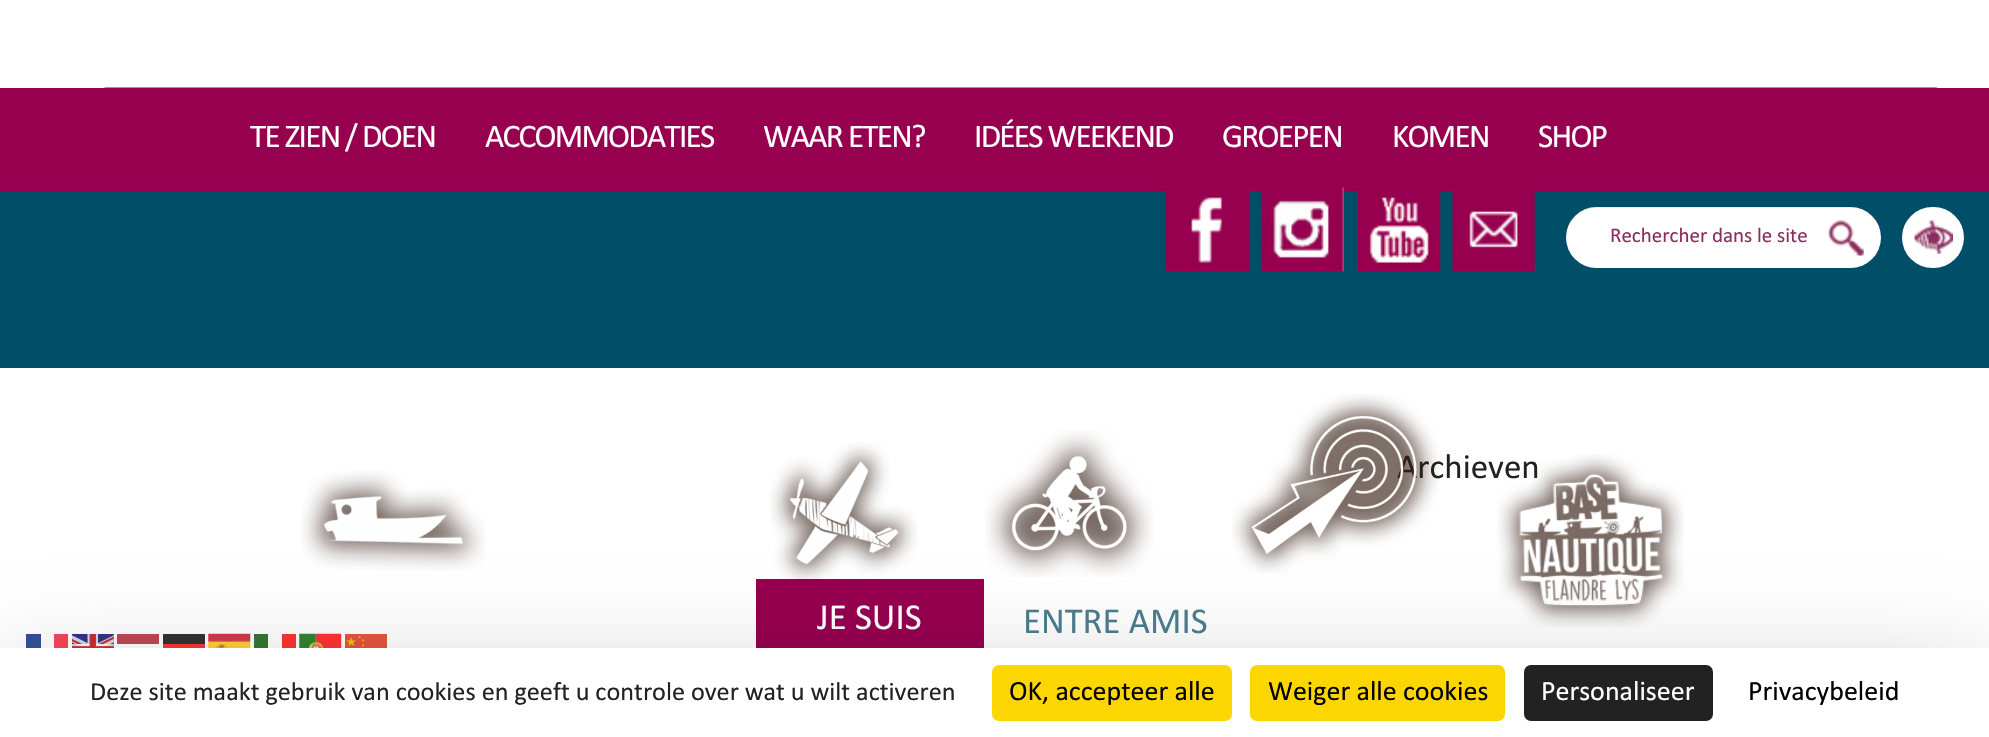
void draw(SkCanvas* canvas) {
	SkPaint paint;
	paint.setAntiAlias(true);
	auto spacedText = [&](const char* s, float x, float y, const SkFont& font, const SkPaint& ink, float letter, float word) {
		std::vector<SkGlyphID> glyphs(font.countText(s, strlen(s), SkTextEncoding::kUTF8));
		std::vector<float> xs(glyphs.size());
		font.textToGlyphs(s, strlen(s), SkTextEncoding::kUTF8, glyphs);
		font.getXPos(glyphs, xs, x);
		float extra = 0;
		for (size_t i = 0; i < glyphs.size(); i++) {
			xs[i] += extra;
			extra += letter + word * (glyphs[i] == font.unicharToGlyph(' '));
		}
		canvas->drawTextBlob(SkTextBlob::MakeFromPosHGlyphs(glyphs, xs, y, font), 0, 0, ink);
	};
	auto svgPath = [&](const char* data, bool evenOdd = false) {
		SkPath result = *SkParsePath::FromSVGString(data);
		if (evenOdd) result.setFillType(SkPathFillType::kEvenOdd);
		return result;
	};
	canvas->clear(0xffffffff);
	paint.setColor(0xff004e67);
	canvas->drawRect(SkRect::MakeXYWH(0, 191, 1989, 177), paint);
	paint.setColor(0xff96004f);
	canvas->drawRect(SkRect::MakeXYWH(0, 88, 1989, 103), paint);
	canvas->drawImageRect(SkImages::DeferredFromEncodedData(SkData::MakeFromFileName("img1.png")), SkRect::MakeXYWH(103, 87, 1835, 1), SkSamplingOptions());
	SkFont f1(fontMgr->matchFamilyStyle("Calibri", SkFontStyle::Normal()), 33.25);
	f1.setSubpixel(true);
	paint.setColor(0xffffffff);
	spacedText("TE ZIEN / DOEN", 250, 147, f1, paint, -1.75, 0);
	spacedText("ACCOMMODATIES", 485, 147, f1, paint, -1.75, 0);
	spacedText("WAAR ETEN?", 763, 147, f1, paint, -1.75, 0);
	spacedText("IDÉES WEEKEND", 974, 147, f1, paint, -1.75, 0);
	spacedText("GROEPEN", 1222, 147, f1, paint, -1.75, 0);
	spacedText("KOMEN", 1392, 147, f1, paint, -1.75, 0);
	spacedText("SHOP", 1538, 147, f1, paint, -1.75, 0);
	canvas->drawImageRect(SkImages::DeferredFromEncodedData(SkData::MakeFromFileName("img2.png")), SkRect::MakeXYWH(1165, 191, 85, 81), SkSamplingOptions());
	canvas->drawImageRect(SkImages::DeferredFromEncodedData(SkData::MakeFromFileName("img3.png")), SkRect::MakeXYWH(1261, 187, 83, 85), SkSamplingOptions());
	canvas->drawImageRect(SkImages::DeferredFromEncodedData(SkData::MakeFromFileName("img4.png")), SkRect::MakeXYWH(1358, 191, 83, 81), SkSamplingOptions());
	canvas->drawImageRect(SkImages::DeferredFromEncodedData(SkData::MakeFromFileName("img5.png")), SkRect::MakeXYWH(1452, 191, 83, 81), SkSamplingOptions());
	canvas->drawRoundRect(SkRect::MakeXYWH(1566, 207, 315, 61), 30.5, 30.5, paint);
	canvas->drawImageRect(SkImages::DeferredFromEncodedData(SkData::MakeFromFileName("img6.png")), SkRect::MakeXYWH(1828, 220, 36, 36), SkSamplingOptions());
	paint.setColor(0x12000000);
	canvas->drawPath(svgPath("M1597 208H1851C1868 208 1881 222 1881 238C1881 221 1867 207 1850 207H1596C1580 207 1566 221 1566 238C1566 222 1580 208 1597 208Z"), paint);
	SkFont f2(fontMgr->matchFamilyStyle("Calibri", SkFontStyle::Normal()), 21);
	f2.setSubpixel(true);
	paint.setColor(0xff8c2e5d);
	canvas->drawString("Rechercher dans le site", 1610, 242, f2, paint);
	paint.setColor(0xffffffff);
	canvas->drawRoundRect(SkRect::MakeXYWH(1902, 207, 62, 61), 30.5, 30.5, paint);
	canvas->drawImageRect(SkImages::DeferredFromEncodedData(SkData::MakeFromFileName("img7.png")), SkRect::MakeXYWH(1914, 220, 39, 34), SkSamplingOptions());
	canvas->drawImageRect(SkImages::DeferredFromEncodedData(SkData::MakeFromFileName("img8.png")), SkRect::MakeXYWH(301, 471, 185, 99), SkSamplingOptions());
	paint.setColor(0xff96004f);
	canvas->drawRect(SkRect::MakeXYWH(756, 579, 228, 69), paint);
	canvas->drawImageRect(SkImages::DeferredFromEncodedData(SkData::MakeFromFileName("img9.png")), SkRect::MakeXYWH(770, 442, 148, 139), SkSamplingOptions());
	canvas->drawImageRect(SkImages::DeferredFromEncodedData(SkData::MakeFromFileName("img10.png")), SkRect::MakeXYWH(985, 430, 168, 147), SkSamplingOptions());
	SkFont f3(fontMgr->matchFamilyStyle("Calibri", SkFontStyle::Normal()), 35);
	f3.setSubpixel(true);
	paint.setColor(0xff222222);
	canvas->drawString("Archieven", 1397, 478, f3, paint);
	canvas->drawImageRect(SkImages::DeferredFromEncodedData(SkData::MakeFromFileName("img11.png")), SkRect::MakeXYWH(1232, 394, 207, 179), SkSamplingOptions());
	canvas->drawImageRect(SkImages::DeferredFromEncodedData(SkData::MakeFromFileName("img12.png")), SkRect::MakeXYWH(1497, 454, 187, 174), SkSamplingOptions());
	SkFont f4(fontMgr->matchFamilyStyle("Calibri", SkFontStyle::Normal()), 36.75);
	f4.setSubpixel(true);
	paint.setColor(0xffffffff);
	canvas->drawString("JE SUIS", 817, 629, f4, paint);
	paint.setColor(0xff4b7e90);
	canvas->drawString("ENTRE AMIS", 1023, 633, f4, paint);
	paint.setColor(0xff335199);
	canvas->drawRect(SkRect::MakeXYWH(26, 634, 15, 14), paint);
	paint.setColor(0xfff54659);
	canvas->drawRect(SkRect::MakeXYWH(54, 634, 14, 14), paint);
	canvas->drawImageRect(SkImages::DeferredFromEncodedData(SkData::MakeFromFileName("img13.png")), SkRect::MakeXYWH(72, 634, 42, 14), SkSamplingOptions());
	paint.setColor(0xffbe4953);
	canvas->drawRect(SkRect::MakeXYWH(117, 634, 42, 10), paint);
	paint.setColor(0xff333333);
	canvas->drawRect(SkRect::MakeXYWH(163, 634, 42, 10), paint);
	canvas->drawImageRect(SkImages::DeferredFromEncodedData(SkData::MakeFromFileName("img14.png")), SkRect::MakeXYWH(208, 633, 43, 15), SkSamplingOptions());
	paint.setColor(0xff337933);
	canvas->drawRect(SkRect::MakeXYWH(254, 634, 14, 14), paint);
	paint.setColor(0xfffd3333);
	canvas->drawRect(SkRect::MakeXYWH(282, 634, 14, 14), paint);
	canvas->drawImageRect(SkImages::DeferredFromEncodedData(SkData::MakeFromFileName("img15.png")), SkRect::MakeXYWH(299, 633, 43, 15), SkSamplingOptions());
	canvas->drawImageRect(SkImages::DeferredFromEncodedData(SkData::MakeFromFileName("img16.png")), SkRect::MakeXYWH(345, 634, 42, 14), SkSamplingOptions());
	paint.setColor(0xffff3333);
	canvas->drawRect(SkRect::MakeXYWH(163, 644, 42, 4), paint);
	paint.setColor(0x40000000);
	paint.setMaskFilter(SkMaskFilter::MakeBlur(kNormal_SkBlurStyle, 52.5));
	canvas->drawRect(SkRect::MakeXYWH(0, 683, 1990, 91), paint);
	paint.setMaskFilter(nullptr);
	paint.setColor(0xffffffff);
	canvas->drawRect(SkRect::MakeXYWH(0, 648, 1989, 89), paint);
	SkFont f5(fontMgr->matchFamilyStyle("Calibri", SkFontStyle::Normal()), 26.25);
	f5.setSubpixel(true);
	paint.setColor(0xff222222);
	canvas->drawString("Deze site maakt gebruik van cookies en geeft u controle over wat u wilt activeren", 90, 700, f5, paint);
	paint.setColor(0xfffbd600);
	canvas->drawRoundRect(SkRect::MakeXYWH(992, 665, 240, 56), 7, 7, paint);
	SkFont f6(fontMgr->matchFamilyStyle("Calibri", SkFontStyle::Normal()), 28);
	f6.setSubpixel(true);
	paint.setColor(0xff000000);
	canvas->drawString("OK, accepteer alle", 1009, 700, f6, paint);
	paint.setColor(0xfffbd600);
	canvas->drawRoundRect(SkRect::MakeXYWH(1250, 665, 255, 56), 7, 7, paint);
	paint.setColor(0xff000000);
	canvas->drawString("Weiger alle cookies", 1268, 700, f6, paint);
	paint.setColor(0xff222222);
	canvas->drawRoundRect(SkRect::MakeXYWH(1524, 665, 189, 56), 7, 7, paint);
	paint.setColor(0xffffffff);
	canvas->drawString("Personaliseer", 1541, 700, f6, paint);
	paint.setColor(0xff000000);
	canvas->drawString("Privacybeleid", 1748, 700, f6, paint);
}
